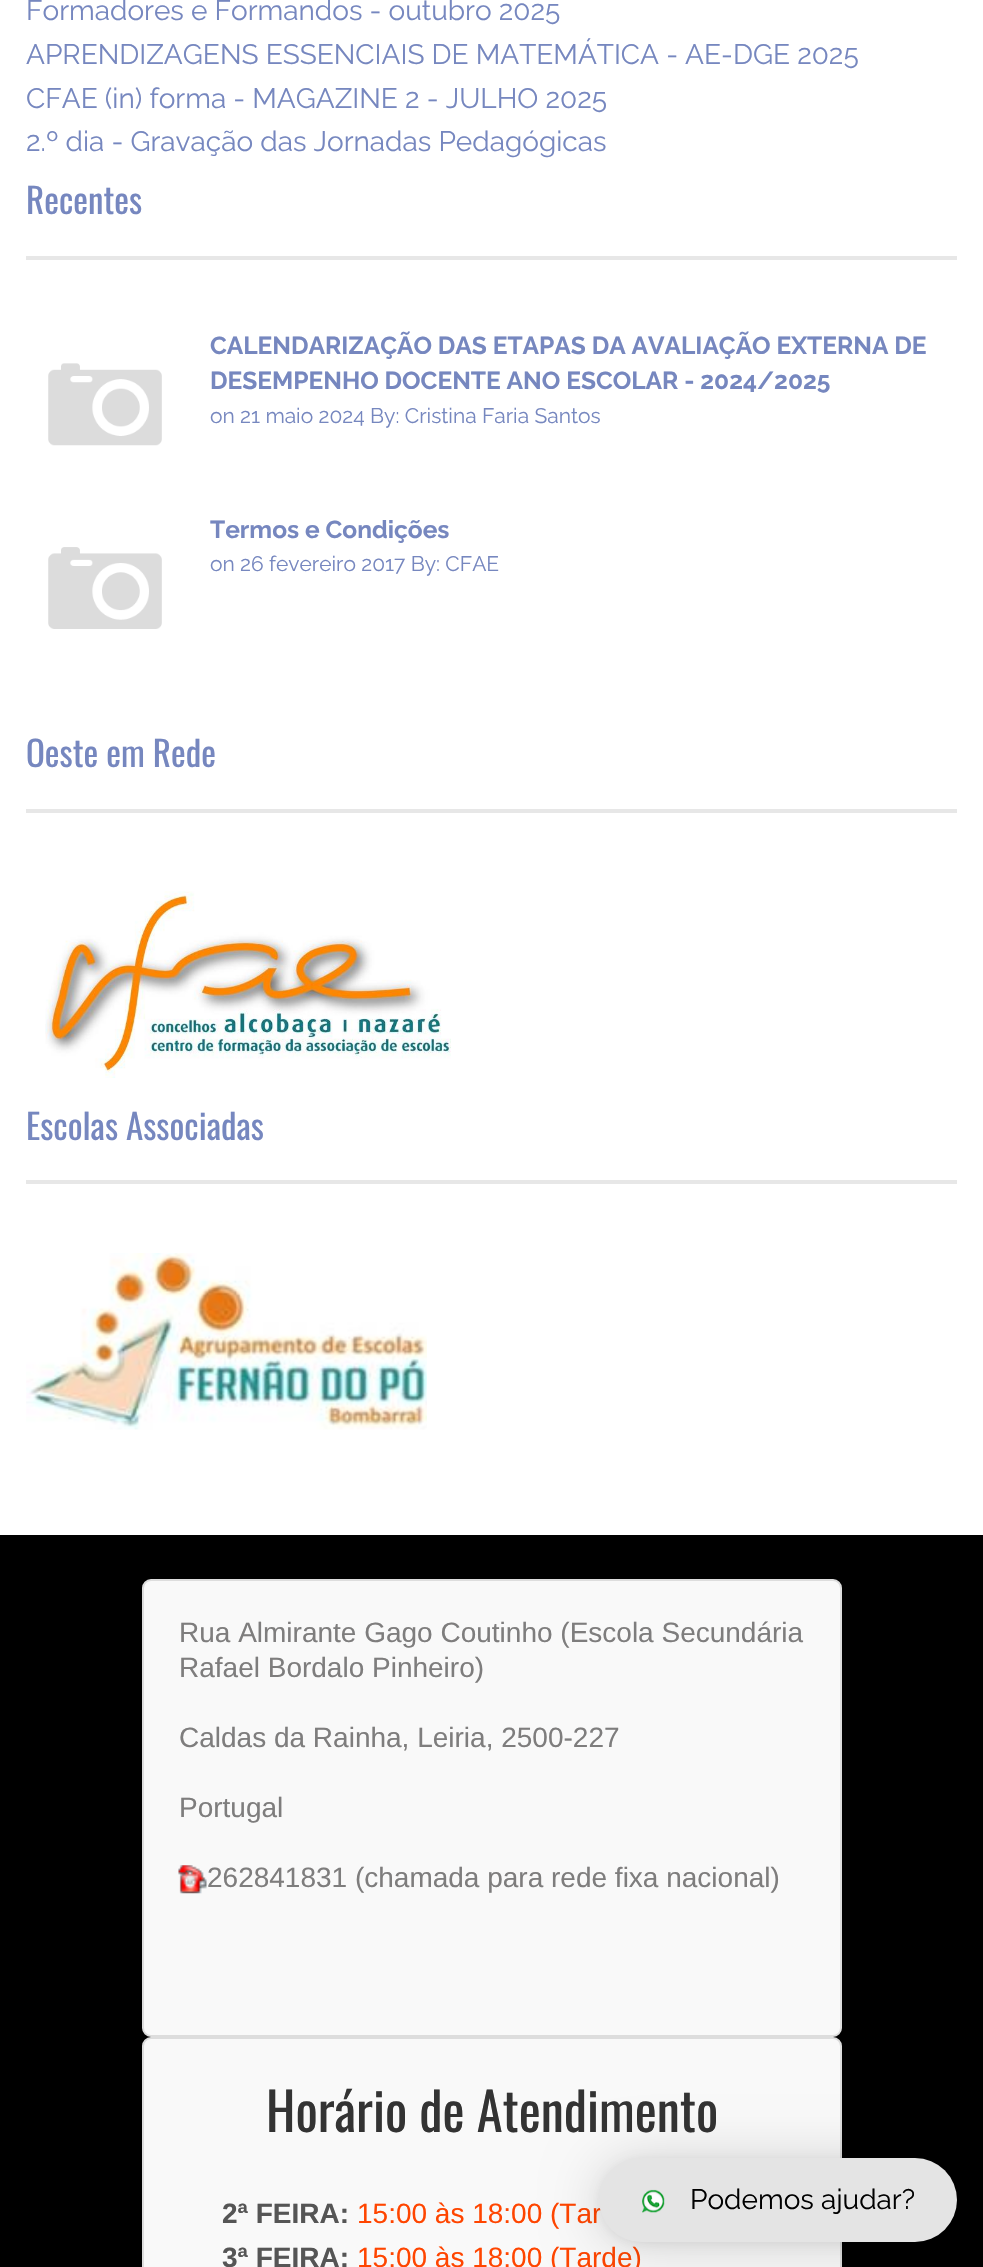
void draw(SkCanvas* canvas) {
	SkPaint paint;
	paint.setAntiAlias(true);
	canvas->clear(0xffffffff);
	SkFont f1(fontMgr->matchFamilyStyle("Raleway", SkFontStyle::Normal()), 28);
	f1.setSubpixel(true);
	paint.setColor(0xff7687bf);
	canvas->drawString("Formadores e Formandos - outubro 2025", 26, 20, f1, paint);
	canvas->drawString("APRENDIZAGENS ESSENCIAIS DE MATEMÁTICA - AE-DGE 2025", 26, 64, f1, paint);
	canvas->drawString("CFAE (in) forma - MAGAZINE 2 - JULHO 2025", 26, 108, f1, paint);
	canvas->drawString("2.º dia - Gravação das Jornadas Pedagógicas", 26, 151, f1, paint);
	paint.setColor(0xffe7e7e7);
	canvas->drawRect(SkRect::MakeXYWH(26, 256, 931, 4), paint);
	SkFont f2(fontMgr->matchFamilyStyle("Oswald", SkFontStyle::Normal()), 35);
	f2.setSubpixel(true);
	paint.setColor(0xff7687bf);
	canvas->drawString("Recentes", 26, 214, f2, paint);
	canvas->drawImageRect(SkImages::DeferredFromEncodedData(SkData::MakeFromFileName("img1.png")), SkRect::MakeXYWH(48, 363, 114, 83), SkSamplingOptions());
	SkFont f3(fontMgr->matchFamilyStyle("Raleway", SkFontStyle::Bold()), 24.5);
	f3.setSubpixel(true);
	canvas->drawString("CALENDARIZAÇÃO DAS ETAPAS DA AVALIAÇÃO EXTERNA DE", 210, 354, f3, paint);
	canvas->drawString("DESEMPENHO DOCENTE ANO ESCOLAR - 2024/2025", 210, 389, f3, paint);
	SkFont f4(fontMgr->matchFamilyStyle("Raleway", SkFontStyle::Normal()), 21);
	f4.setSubpixel(true);
	canvas->drawString("on 21 maio 2024 By: Cristina Faria Santos", 210, 423, f4, paint);
	canvas->drawString("Termos e Condições", 210, 538, f3, paint);
	canvas->drawImageRect(SkImages::DeferredFromEncodedData(SkData::MakeFromFileName("img2.png")), SkRect::MakeXYWH(48, 547, 114, 82), SkSamplingOptions());
	canvas->drawString("on 26 fevereiro 2017 By: CFAE", 210, 571, f4, paint);
	paint.setColor(0xffe7e7e7);
	canvas->drawRect(SkRect::MakeXYWH(26, 809, 931, 4), paint);
	paint.setColor(0xff7687bf);
	canvas->drawString("Oeste em Rede", 26, 767, f2, paint);
	canvas->drawImageRect(SkImages::DeferredFromEncodedData(SkData::MakeFromFileName("img3.png")), SkRect::MakeXYWH(45, 891, 406, 187), SkSamplingOptions());
	paint.setColor(0xffe7e7e7);
	canvas->drawRect(SkRect::MakeXYWH(26, 1180, 931, 4), paint);
	paint.setColor(0xff7687bf);
	canvas->drawString("Escolas Associadas", 26, 1140, f2, paint);
	canvas->drawImageRect(SkImages::DeferredFromEncodedData(SkData::MakeFromFileName("img4.png")), SkRect::MakeXYWH(26, 1253, 401, 177), SkSamplingOptions());
	paint.setColor(0xff000000);
	canvas->drawRect(SkRect::MakeXYWH(0, 1535, 983, 732), paint);
	paint.setColor(0xfff9f9f9);
	canvas->drawRoundRect(SkRect::MakeXYWH(143, 1580, 698, 456), 8, 8, paint);
	paint.setStroke(true);
	paint.setStrokeWidth(2);
	paint.setColor(0xffdddddd);
	canvas->drawRoundRect(SkRect::MakeXYWH(143, 1580, 698, 456), 8, 8, paint);
	SkFont f5(fontMgr->matchFamilyStyle("Liberation Sans", SkFontStyle::Normal()), 28);
	f5.setSubpixel(true);
	paint.setStroke(false);
	paint.setColor(0xff7e7d7d);
	canvas->drawString("Rua Almirante Gago Coutinho (Escola Secundária", 179, 1642, f5, paint);
	canvas->drawString("Rafael Bordalo Pinheiro)", 179, 1677, f5, paint);
	canvas->drawString("Caldas da Rainha, Leiria, 2500-227", 179, 1747, f5, paint);
	canvas->drawString("Portugal", 179, 1817, f5, paint);
	canvas->drawImageRect(SkImages::DeferredFromEncodedData(SkData::MakeFromFileName("img5.png")), SkRect::MakeXYWH(178, 1865, 29, 29), SkSamplingOptions());
	canvas->drawString("262841831 (chamada para rede fixa nacional)", 207, 1887, f5, paint);
	paint.setColor(0xfff9f9f9);
	canvas->drawRoundRect(SkRect::MakeXYWH(143, 2038, 698, 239), 8, 8, paint);
	paint.setStroke(true);
	paint.setColor(0xffdddddd);
	canvas->drawRoundRect(SkRect::MakeXYWH(143, 2038, 698, 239), 8, 8, paint);
	SkFont f6(fontMgr->matchFamilyStyle("Oswald", SkFontStyle::Normal()), 52.5);
	f6.setSubpixel(true);
	paint.setStroke(false);
	paint.setColor(0xff333333);
	canvas->drawString("Horário de Atendimento", 266, 2132, f6, paint);
	SkFont f7(fontMgr->matchFamilyStyle("Liberation Sans", SkFontStyle::Bold()), 28);
	f7.setSubpixel(true);
	paint.setColor(0xff555555);
	canvas->drawString("2ª FEIRA:", 222, 2223, f7, paint);
	paint.setColor(0xffff4500);
	canvas->drawString("15:00 às 18:00 (Tar", 357, 2223, f5, paint);
	paint.setColor(0xff555555);
	canvas->drawString("3ª FEIRA:", 222, 2267, f7, paint);
	paint.setColor(0xffff4500);
	canvas->drawString("15:00 às 18:00 (Tarde)", 357, 2267, f5, paint);
	paint.setColor(0x29000000);
	paint.setMaskFilter(SkMaskFilter::MakeBlur(kNormal_SkBlurStyle, 28));
	canvas->drawRoundRect(SkRect::MakeXYWH(599, 2161, 358, 84), 42, 42, paint);
	paint.setMaskFilter(nullptr);
	paint.setColor(0x0f000000);
	paint.setMaskFilter(SkMaskFilter::MakeBlur(kNormal_SkBlurStyle, 5));
	canvas->drawRoundRect(SkRect::MakeXYWH(599, 2160, 358, 84), 42, 42, paint);
	paint.setMaskFilter(nullptr);
	paint.setColor(0xffe4e4e4);
	canvas->drawRoundRect(SkRect::MakeXYWH(599, 2158, 358, 84), 42, 42, paint);
	canvas->drawImageRect(SkImages::DeferredFromEncodedData(SkData::MakeFromFileName("img6.png")), SkRect::MakeXYWH(642, 2189, 23, 24), SkSamplingOptions());
	paint.setColor(0xff000000);
	canvas->drawString("Podemos ajudar?", 690, 2209, f1, paint);
}
